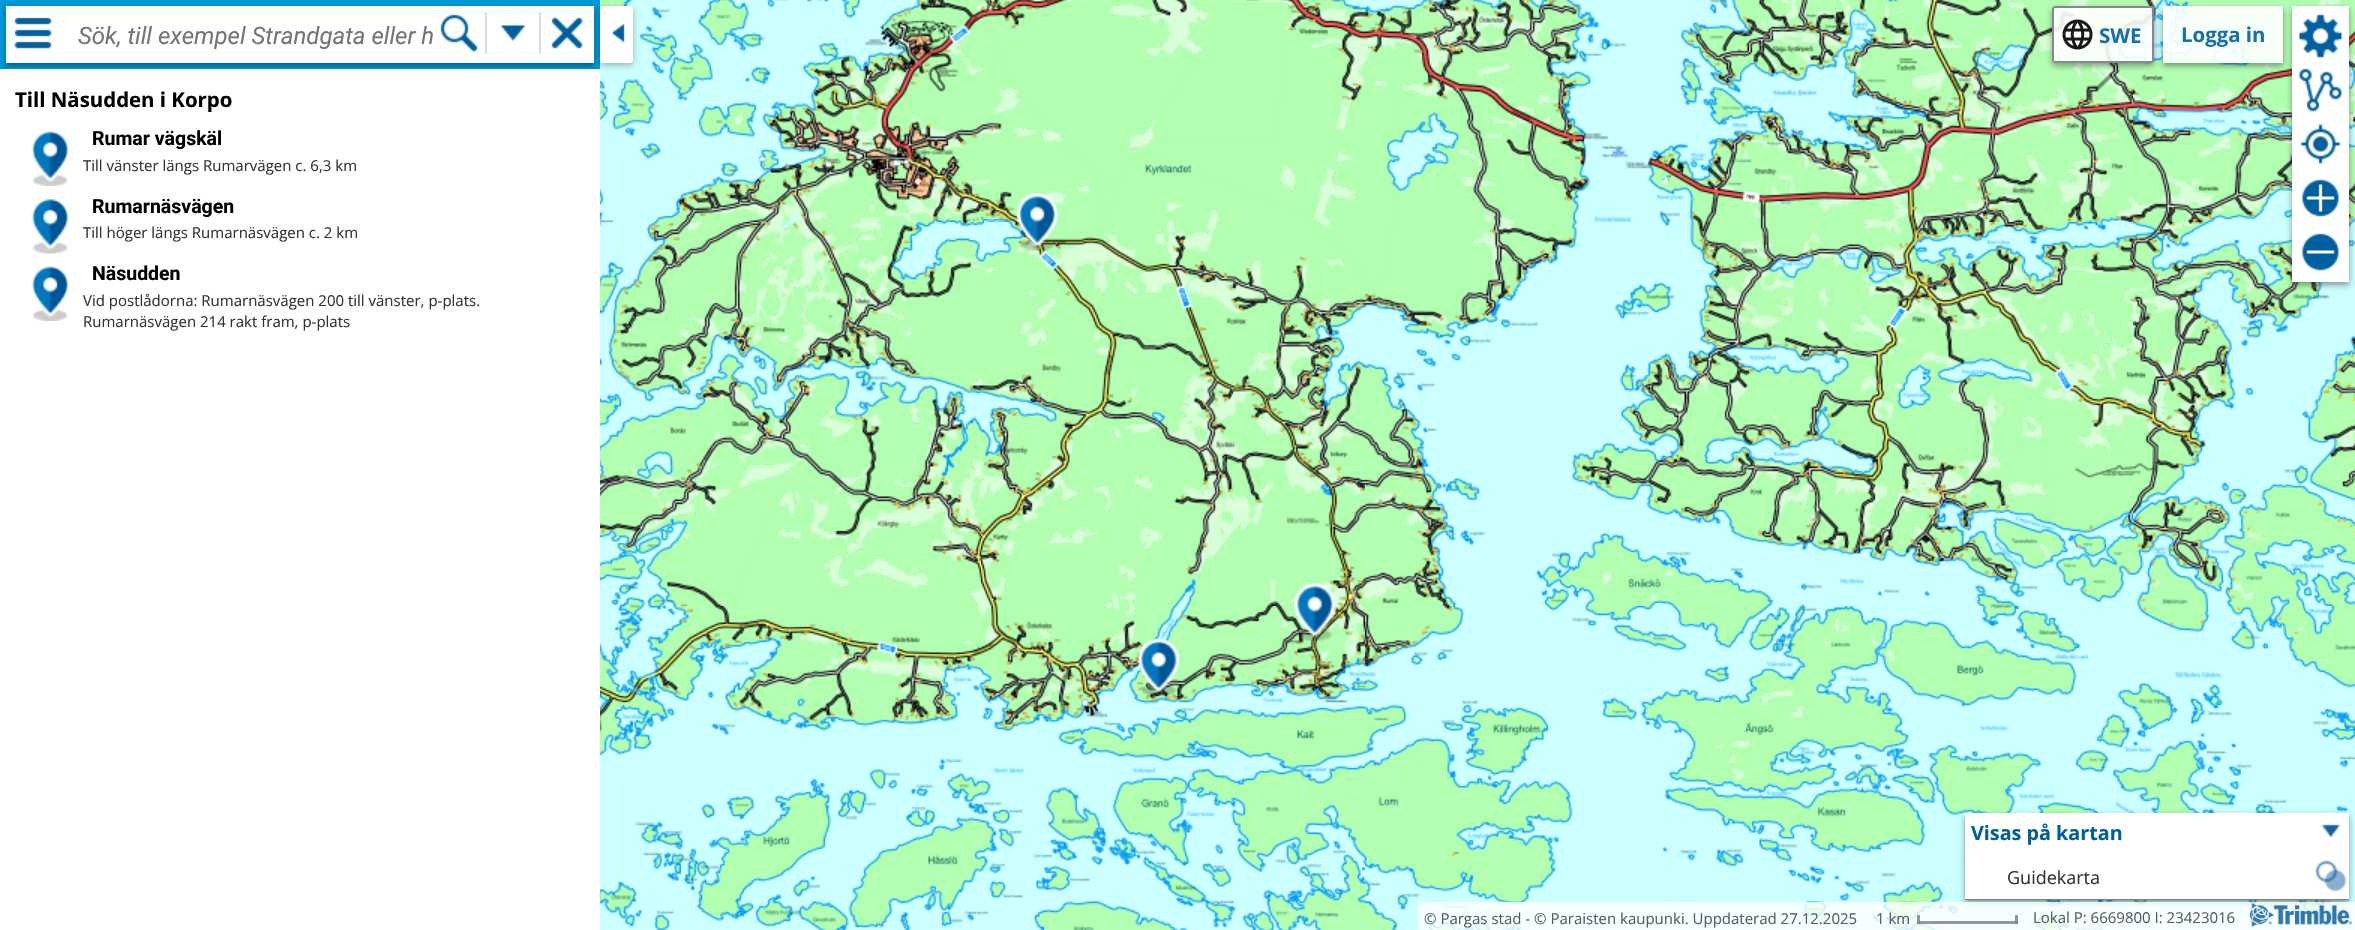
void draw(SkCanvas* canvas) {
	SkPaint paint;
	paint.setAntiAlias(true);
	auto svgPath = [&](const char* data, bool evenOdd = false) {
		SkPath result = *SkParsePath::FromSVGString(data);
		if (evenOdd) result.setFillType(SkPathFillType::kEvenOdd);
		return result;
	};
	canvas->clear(0xffffffff);
	canvas->drawImageRect(SkImages::DeferredFromEncodedData(SkData::MakeFromFileName("img1.png")), SkRect::MakeXYWH(600, 0, 381, 222), SkSamplingOptions());
	canvas->drawImageRect(SkImages::DeferredFromEncodedData(SkData::MakeFromFileName("img2.png")), SkRect::MakeXYWH(981, 0, 384, 222), SkSamplingOptions());
	canvas->drawImageRect(SkImages::DeferredFromEncodedData(SkData::MakeFromFileName("img3.png")), SkRect::MakeXYWH(1365, 0, 384, 222), SkSamplingOptions());
	canvas->drawImageRect(SkImages::DeferredFromEncodedData(SkData::MakeFromFileName("img4.png")), SkRect::MakeXYWH(1749, 0, 384, 222), SkSamplingOptions());
	canvas->drawImageRect(SkImages::DeferredFromEncodedData(SkData::MakeFromFileName("img5.png")), SkRect::MakeXYWH(2133, 0, 222, 222), SkSamplingOptions());
	canvas->drawImageRect(SkImages::DeferredFromEncodedData(SkData::MakeFromFileName("img6.png")), SkRect::MakeXYWH(600, 222, 381, 384), SkSamplingOptions());
	canvas->drawImageRect(SkImages::DeferredFromEncodedData(SkData::MakeFromFileName("img7.png")), SkRect::MakeXYWH(981, 222, 384, 384), SkSamplingOptions());
	canvas->drawImageRect(SkImages::DeferredFromEncodedData(SkData::MakeFromFileName("img8.png")), SkRect::MakeXYWH(1365, 222, 384, 384), SkSamplingOptions());
	canvas->drawImageRect(SkImages::DeferredFromEncodedData(SkData::MakeFromFileName("img9.png")), SkRect::MakeXYWH(1749, 222, 384, 384), SkSamplingOptions());
	canvas->drawImageRect(SkImages::DeferredFromEncodedData(SkData::MakeFromFileName("img10.png")), SkRect::MakeXYWH(2133, 222, 222, 384), SkSamplingOptions());
	canvas->drawImageRect(SkImages::DeferredFromEncodedData(SkData::MakeFromFileName("img11.png")), SkRect::MakeXYWH(600, 606, 381, 324), SkSamplingOptions());
	canvas->drawImageRect(SkImages::DeferredFromEncodedData(SkData::MakeFromFileName("img12.png")), SkRect::MakeXYWH(981, 606, 384, 324), SkSamplingOptions());
	canvas->drawImageRect(SkImages::DeferredFromEncodedData(SkData::MakeFromFileName("img13.png")), SkRect::MakeXYWH(1365, 606, 384, 324), SkSamplingOptions());
	canvas->drawImageRect(SkImages::DeferredFromEncodedData(SkData::MakeFromFileName("img14.png")), SkRect::MakeXYWH(1749, 606, 384, 324), SkSamplingOptions());
	canvas->drawImageRect(SkImages::DeferredFromEncodedData(SkData::MakeFromFileName("img15.png")), SkRect::MakeXYWH(2133, 606, 222, 324), SkSamplingOptions());
	canvas->drawImageRect(SkImages::DeferredFromEncodedData(SkData::MakeFromFileName("img16.png")), SkRect::MakeXYWH(1017, 193, 41, 58), SkSamplingOptions());
	canvas->drawImageRect(SkImages::DeferredFromEncodedData(SkData::MakeFromFileName("img17.png")), SkRect::MakeXYWH(1294, 583, 42, 58), SkSamplingOptions());
	canvas->drawImageRect(SkImages::DeferredFromEncodedData(SkData::MakeFromFileName("img18.png")), SkRect::MakeXYWH(1138, 639, 42, 57), SkSamplingOptions());
	paint.setColor(0xff009ad9);
	canvas->drawRect(SkRect::MakeXYWH(0, 0, 600, 69), paint);
	paint.setColor(0x4d000000);
	paint.setMaskFilter(SkMaskFilter::MakeBlur(kNormal_SkBlurStyle, 3));
	canvas->drawRoundRect(SkRect::MakeXYWH(600, 8, 33, 57), 3, 3, paint);
	paint.setMaskFilter(nullptr);
	paint.setColor(0xffffffff);
	canvas->drawRoundRect(SkRect::MakeXYWH(600, 6, 33, 57), 3, 3, paint);
	paint.setColor(0x66000000);
	paint.setMaskFilter(SkMaskFilter::MakeBlur(kNormal_SkBlurStyle, 3));
	canvas->drawRect(SkRect::MakeXYWH(6, 9, 588, 57), paint);
	paint.setMaskFilter(nullptr);
	paint.setColor(0xffffffff);
	canvas->drawRect(SkRect::MakeXYWH(6, 6, 588, 57), paint);
	canvas->drawImageRect(SkImages::DeferredFromEncodedData(SkData::MakeFromFileName("img19.png")), SkRect::MakeXYWH(14, 17, 38, 32), SkSamplingOptions());
	SkFont f1(fontMgr->matchFamilyStyle("Roboto", SkFontStyle::Italic()), 24);
	f1.setSubpixel(true);
	paint.setColor(0xff757575);
	canvas->drawString("Sök, till exempel Strandgata eller h", 78, 44, f1, paint);
	canvas->drawImageRect(SkImages::DeferredFromEncodedData(SkData::MakeFromFileName("img20.png")), SkRect::MakeXYWH(440, 14, 38, 38), SkSamplingOptions());
	paint.setColor(0xffdddddd);
	canvas->drawRect(SkRect::MakeXYWH(485, 12, 2, 42), paint);
	canvas->drawImageRect(SkImages::DeferredFromEncodedData(SkData::MakeFromFileName("img21.png")), SkRect::MakeXYWH(500, 25, 26, 16), SkSamplingOptions());
	canvas->drawRect(SkRect::MakeXYWH(539, 12, 2, 42), paint);
	canvas->drawImageRect(SkImages::DeferredFromEncodedData(SkData::MakeFromFileName("img22.png")), SkRect::MakeXYWH(551, 17, 32, 32), SkSamplingOptions());
	canvas->save();
	canvas->clipPath(svgPath("M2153 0H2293V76H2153ZM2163 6H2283V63H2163Z", true), true);
	paint.setColor(0x66000000);
	paint.setMaskFilter(SkMaskFilter::MakeBlur(kNormal_SkBlurStyle, 3));
	canvas->drawRect(SkRect::MakeXYWH(2163, 9, 120, 57), paint);
	paint.setMaskFilter(nullptr);
	canvas->restore();
	paint.setColor(0xe6ffffff);
	canvas->drawRect(SkRect::MakeXYWH(2163, 6, 120, 57), paint);
	canvas->save();
	canvas->clipPath(svgPath("M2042 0H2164V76H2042ZM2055 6H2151C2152.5 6 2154 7.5 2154 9V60C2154 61.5 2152.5 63 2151 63H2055C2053.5 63 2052 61.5 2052 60V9C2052 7.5 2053.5 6 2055 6Z", true), true);
	paint.setColor(0x5c000000);
	paint.setMaskFilter(SkMaskFilter::MakeBlur(kNormal_SkBlurStyle, 3));
	canvas->drawRoundRect(SkRect::MakeXYWH(2052, 9, 102, 57), 3, 3, paint);
	paint.setMaskFilter(nullptr);
	canvas->restore();
	paint.setColor(0xe6ffffff);
	canvas->drawRoundRect(SkRect::MakeXYWH(2052, 6, 102, 57), 3, 3, paint);
	canvas->drawImageRect(SkImages::DeferredFromEncodedData(SkData::MakeFromFileName("img23.png")), SkRect::MakeXYWH(2062, 19, 31, 31), SkSamplingOptions());
	paint.setStroke(true);
	paint.setStrokeWidth(2);
	paint.setColor(0xe67b7a86);
	canvas->drawRoundRect(SkRect::MakeXYWH(2053, 7, 100, 55), 2, 2, paint);
	SkFont f2(fontMgr->matchFamilyStyle("Open Sans", SkFontStyle::Bold()), 20.4);
	f2.setSubpixel(true);
	paint.setStroke(false);
	paint.setColor(0xff196fa7);
	canvas->drawString("SWE", 2099, 43, f2, paint);
	canvas->drawString("Logga in", 2181, 42, f2, paint);
	paint.setColor(0x66000000);
	paint.setMaskFilter(SkMaskFilter::MakeBlur(kNormal_SkBlurStyle, 3));
	canvas->drawRect(SkRect::MakeXYWH(2292, 9, 57, 276), paint);
	paint.setMaskFilter(nullptr);
	paint.setColor(0xffffffff);
	canvas->drawRect(SkRect::MakeXYWH(2292, 6, 57, 276), paint);
	canvas->drawImageRect(SkImages::DeferredFromEncodedData(SkData::MakeFromFileName("img24.png")), SkRect::MakeXYWH(2299, 14, 43, 44), SkSamplingOptions());
	canvas->drawImageRect(SkImages::DeferredFromEncodedData(SkData::MakeFromFileName("img25.png")), SkRect::MakeXYWH(2299, 68, 43, 44), SkSamplingOptions());
	canvas->drawImageRect(SkImages::DeferredFromEncodedData(SkData::MakeFromFileName("img26.png")), SkRect::MakeXYWH(2300, 124, 41, 40), SkSamplingOptions());
	canvas->drawImageRect(SkImages::DeferredFromEncodedData(SkData::MakeFromFileName("img27.png")), SkRect::MakeXYWH(2302, 179, 37, 38), SkSamplingOptions());
	canvas->drawImageRect(SkImages::DeferredFromEncodedData(SkData::MakeFromFileName("img28.png")), SkRect::MakeXYWH(2302, 233, 37, 38), SkSamplingOptions());
	canvas->drawImageRect(SkImages::DeferredFromEncodedData(SkData::MakeFromFileName("img29.png")), SkRect::MakeXYWH(611, 23, 14, 20), SkSamplingOptions());
	paint.setColor(0xff000000);
	canvas->drawString("Till Näsudden i Korpo", 15, 107, f2, paint);
	canvas->drawImageRect(SkImages::DeferredFromEncodedData(SkData::MakeFromFileName("img30.png")), SkRect::MakeXYWH(32, 131, 36, 55), SkSamplingOptions());
	SkFont f3(fontMgr->matchFamilyStyle("Roboto", SkFontStyle::Bold()), 19.5);
	f3.setSubpixel(true);
	canvas->drawString("Rumar vägskäl", 92, 145, f3, paint);
	SkFont f4(fontMgr->matchFamilyStyle("Open Sans", SkFontStyle::Normal()), 15);
	f4.setSubpixel(true);
	paint.setColor(0xff333333);
	canvas->drawString("Till vänster längs Rumarvägen c. 6,3 km", 83, 171, f4, paint);
	canvas->drawImageRect(SkImages::DeferredFromEncodedData(SkData::MakeFromFileName("img31.png")), SkRect::MakeXYWH(32, 199, 36, 55), SkSamplingOptions());
	paint.setColor(0xff000000);
	canvas->drawString("Rumarnäsvägen", 92, 213, f3, paint);
	paint.setColor(0xff333333);
	canvas->drawString("Till höger längs Rumarnäsvägen c. 2 km", 83, 238, f4, paint);
	canvas->drawImageRect(SkImages::DeferredFromEncodedData(SkData::MakeFromFileName("img30.png")), SkRect::MakeXYWH(32, 266, 36, 55), SkSamplingOptions());
	paint.setColor(0xff000000);
	canvas->drawString("Näsudden", 92, 280, f3, paint);
	paint.setColor(0xff333333);
	canvas->drawString("Vid postlådorna: Rumarnäsvägen 200 till vänster, p-plats.", 83, 306, f4, paint);
	canvas->drawString("Rumarnäsvägen 214 rakt fram, p-plats", 83, 327, f4, paint);
	paint.setColor(0x66000000);
	paint.setMaskFilter(SkMaskFilter::MakeBlur(kNormal_SkBlurStyle, 3));
	canvas->drawRect(SkRect::MakeXYWH(1965, 816, 384, 87), paint);
	paint.setMaskFilter(nullptr);
	paint.setColor(0xffffffff);
	canvas->drawRect(SkRect::MakeXYWH(1965, 813, 384, 86), paint);
	SkFont f5(fontMgr->matchFamilyStyle("Open Sans", SkFontStyle::Bold()), 19.75);
	f5.setSubpixel(true);
	paint.setColor(0xff005f9e);
	canvas->drawString("Visas på kartan", 1971, 840, f5, paint);
	canvas->drawImageRect(SkImages::DeferredFromEncodedData(SkData::MakeFromFileName("img32.png")), SkRect::MakeXYWH(2321, 824, 20, 14), SkSamplingOptions());
	paint.setColor(0xff808080);
	canvas->drawRect(SkRect::MakeXYWH(1965, 899, 384, 1), paint);
	SkFont f6(fontMgr->matchFamilyStyle("Open Sans", SkFontStyle::Normal()), 18);
	f6.setSubpixel(true);
	paint.setColor(0xff333333);
	canvas->drawString("Guidekarta", 2007, 884, f6, paint);
	canvas->drawImageRect(SkImages::DeferredFromEncodedData(SkData::MakeFromFileName("img33.png")), SkRect::MakeXYWH(2315, 860, 32, 32), SkSamplingOptions());
	paint.setColor(0xccffffff);
	canvas->drawRect(SkRect::MakeXYWH(1418, 902, 937, 28), paint);
	paint.setColor(0xff595c5c);
	canvas->drawString("© Pargas stad - © Paraisten kaupunki. Uppdaterad 27.12.2025", 1424, 924, f4, paint);
	canvas->drawString("1 km", 1876, 924, f4, paint);
	paint.setColor(0xff8f9999);
	canvas->drawRect(SkRect::MakeXYWH(2015, 915, 3, 9), paint);
	paint.setColor(0xcc808080);
	canvas->drawRect(SkRect::MakeXYWH(1917, 921, 101, 3), paint);
	canvas->drawRect(SkRect::MakeXYWH(1917, 915, 3, 9), paint);
	paint.setColor(0xff595c5c);
	canvas->drawString("Lokal P: 6669800 I: 23423016", 2033, 923, f4, paint);
	canvas->drawImageRect(SkImages::DeferredFromEncodedData(SkData::MakeFromFileName("img34.png")), SkRect::MakeXYWH(2250, 903, 102, 24), SkSamplingOptions());
}
